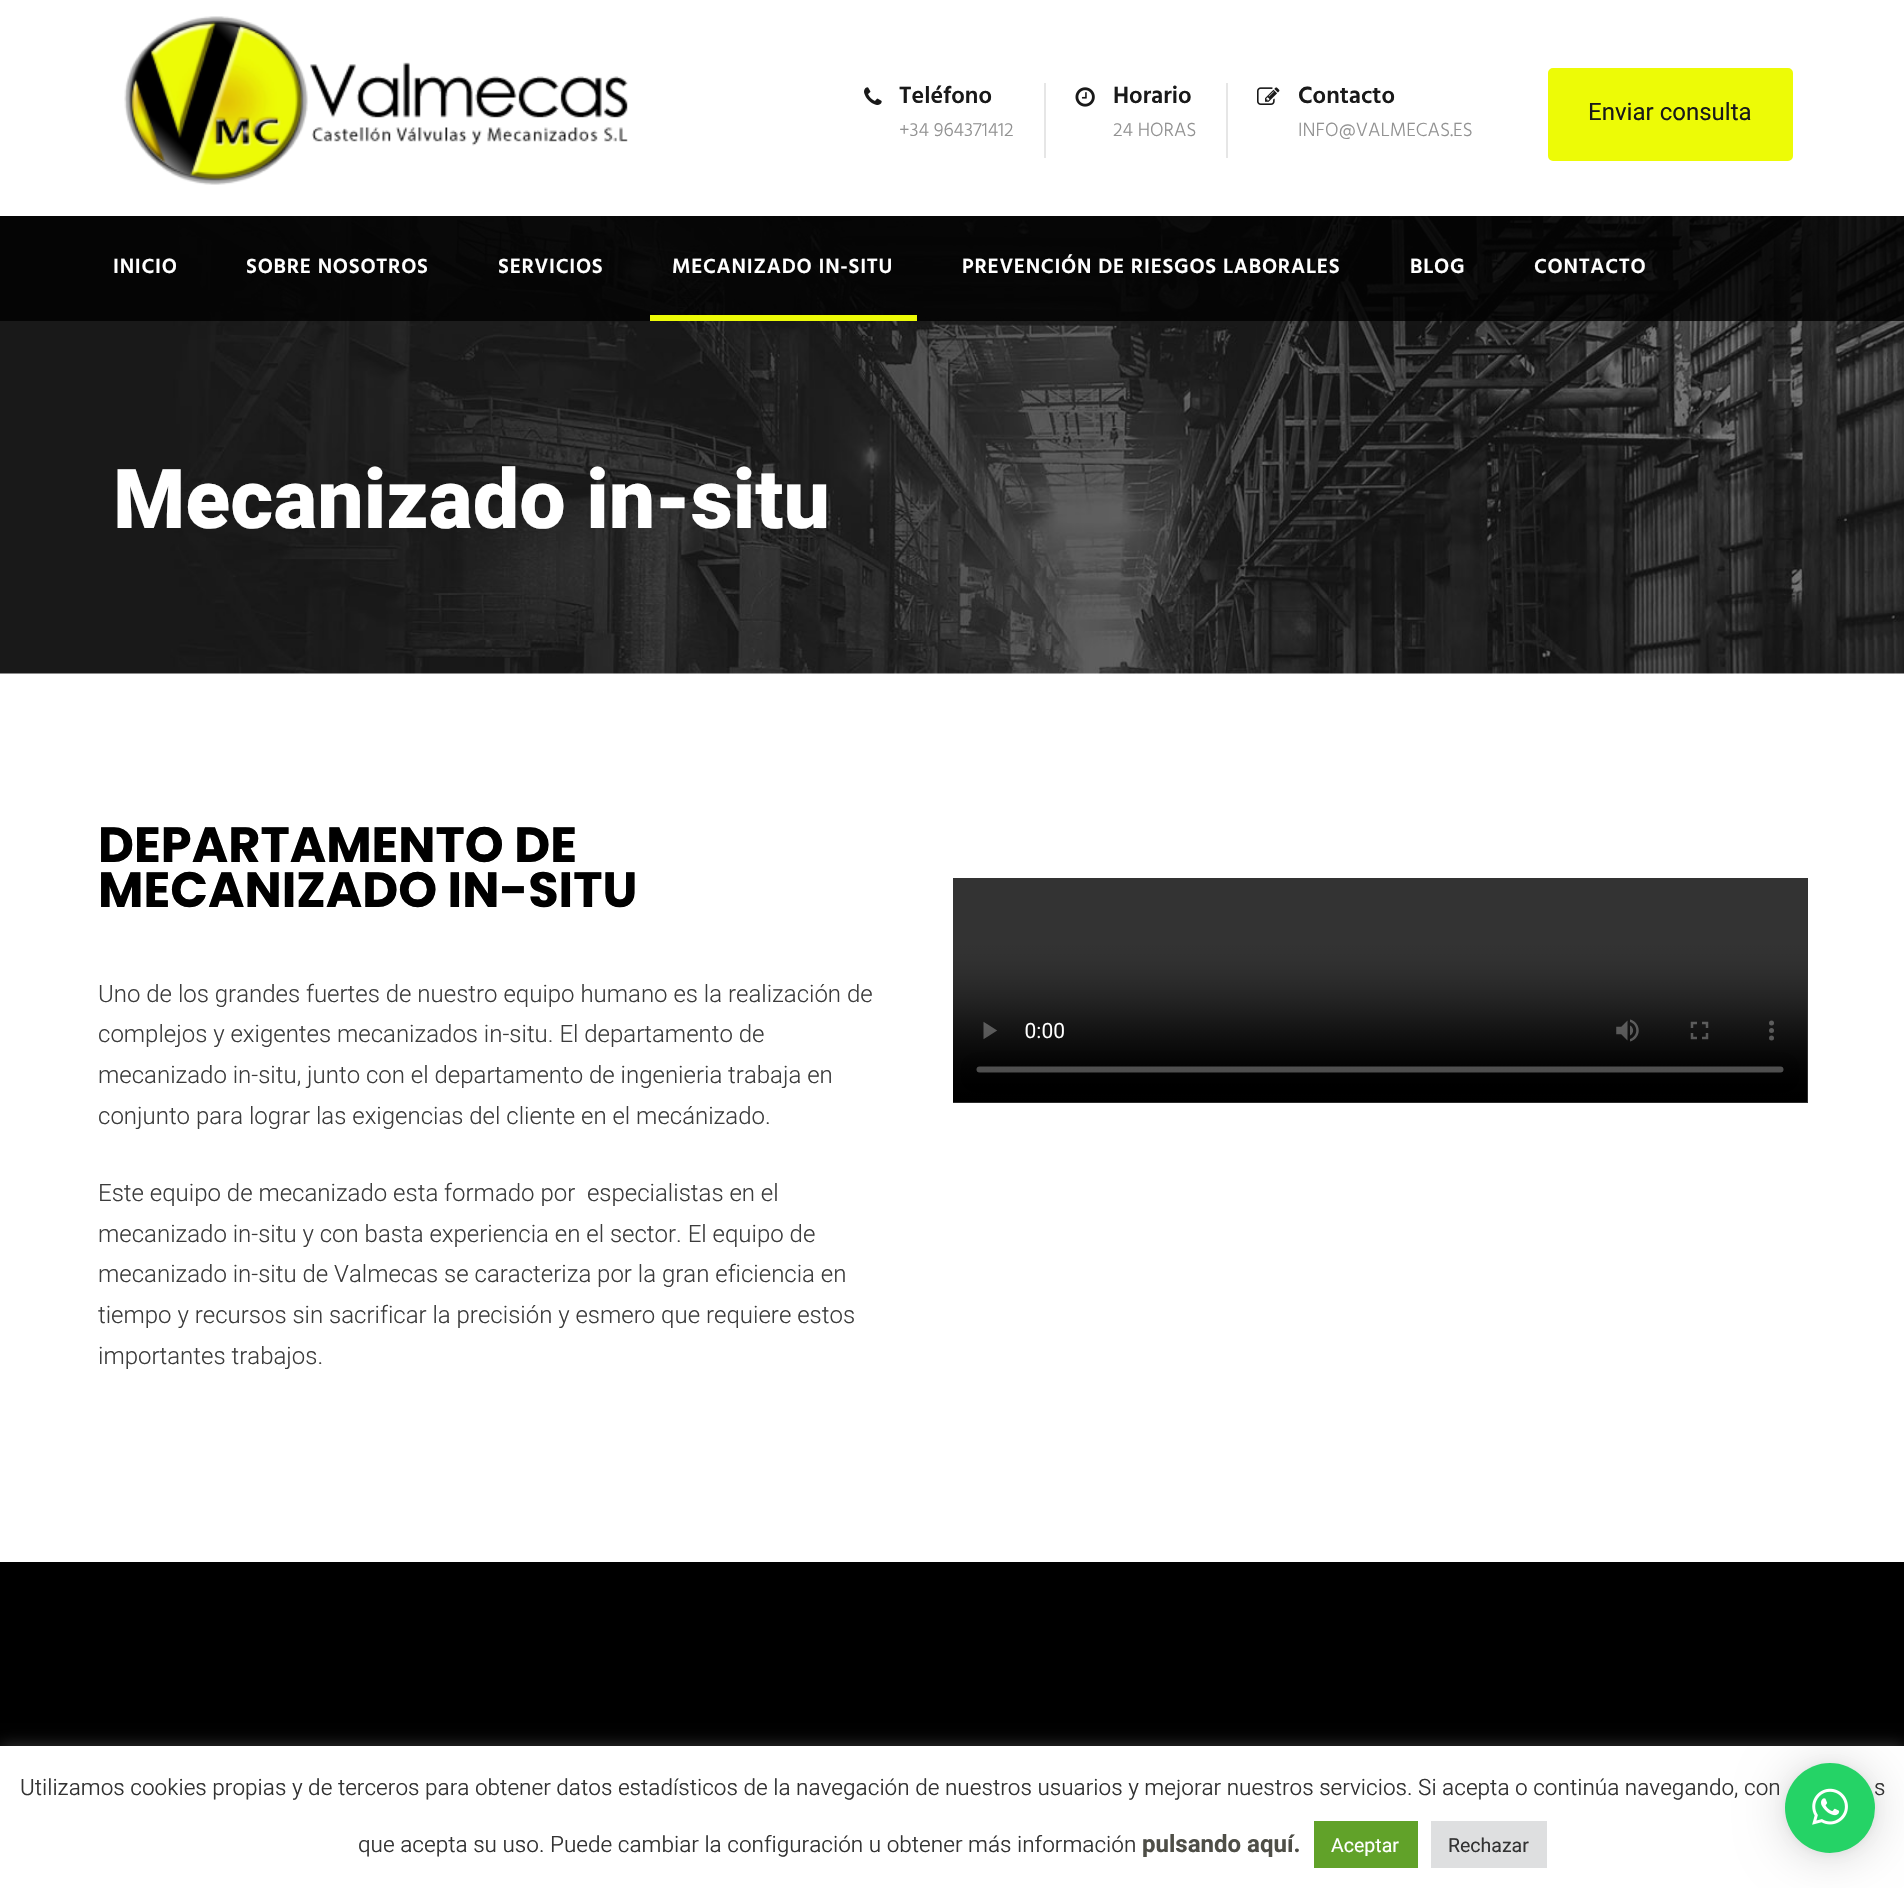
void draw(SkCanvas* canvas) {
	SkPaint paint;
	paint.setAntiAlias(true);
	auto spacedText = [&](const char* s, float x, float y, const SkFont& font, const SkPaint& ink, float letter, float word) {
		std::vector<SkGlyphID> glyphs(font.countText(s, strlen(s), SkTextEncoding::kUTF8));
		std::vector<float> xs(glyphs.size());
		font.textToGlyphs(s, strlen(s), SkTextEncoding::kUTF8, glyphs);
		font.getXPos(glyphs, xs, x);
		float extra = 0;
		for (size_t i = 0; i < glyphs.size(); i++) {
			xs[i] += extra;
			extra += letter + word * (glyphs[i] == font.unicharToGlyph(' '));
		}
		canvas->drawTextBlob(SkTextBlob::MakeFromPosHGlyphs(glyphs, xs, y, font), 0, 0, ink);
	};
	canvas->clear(0xffffffff);
	canvas->drawImageRect(SkImages::DeferredFromEncodedData(SkData::MakeFromFileName("img1.png")), SkRect::MakeXYWH(124, 16, 504, 169), SkSamplingOptions());
	canvas->drawImageRect(SkImages::DeferredFromEncodedData(SkData::MakeFromFileName("img2.png")), SkRect::MakeXYWH(864, 87, 18, 18), SkSamplingOptions());
	SkFont f1(fontMgr->matchFamilyStyle("Hind", SkFontStyle(600, SkFontStyle::kNormal_Width, SkFontStyle::kUpright_Slant)), 24);
	f1.setSubpixel(true);
	paint.setColor(0xff191919);
	canvas->drawString("Teléfono", 899, 103, f1, paint);
	SkFont f2(fontMgr->matchFamilyStyle("Hind", SkFontStyle(300, SkFontStyle::kNormal_Width, SkFontStyle::kUpright_Slant)), 19.5);
	f2.setSubpixel(true);
	paint.setColor(0xff929292);
	canvas->drawString("+34 964371412", 899, 136, f2, paint);
	paint.setColor(0xffe6e6e6);
	canvas->drawRect(SkRect::MakeXYWH(1044, 83, 2, 75), paint);
	canvas->drawImageRect(SkImages::DeferredFromEncodedData(SkData::MakeFromFileName("img3.png")), SkRect::MakeXYWH(1075, 87, 20, 20), SkSamplingOptions());
	paint.setColor(0xff191919);
	canvas->drawString("Horario", 1113, 103, f1, paint);
	paint.setColor(0xff929292);
	canvas->drawString("24 HORAS", 1113, 136, f2, paint);
	paint.setColor(0xffe6e6e6);
	canvas->drawRect(SkRect::MakeXYWH(1226, 83, 2, 75), paint);
	canvas->drawImageRect(SkImages::DeferredFromEncodedData(SkData::MakeFromFileName("img4.png")), SkRect::MakeXYWH(1257, 87, 23, 18), SkSamplingOptions());
	paint.setColor(0xff191919);
	canvas->drawString("Contacto", 1298, 103, f1, paint);
	paint.setColor(0xff929292);
	canvas->drawString("INFO@VALMECAS.ES", 1298, 136, f2, paint);
	paint.setColor(0xffedfb06);
	canvas->drawRoundRect(SkRect::MakeXYWH(1549.5, 69.5, 242, 90), 3.5, 3.5, paint);
	paint.setStroke(true);
	paint.setStrokeWidth(3);
	canvas->drawRoundRect(SkRect::MakeXYWH(1549.5, 69.5, 242, 90), 3.5, 3.5, paint);
	SkFont f3(fontMgr->matchFamilyStyle("Heebo", SkFontStyle::Normal()), 24);
	f3.setSubpixel(true);
	paint.setStroke(false);
	paint.setColor(0xff191919);
	canvas->drawString("Enviar consulta", 1588, 120, f3, paint);
	canvas->drawImageRect(SkImages::DeferredFromEncodedData(SkData::MakeFromFileName("img5.png")), SkRect::MakeXYWH(0, 216, 1904, 458), SkSamplingOptions());
	paint.setColor(0xd1000000);
	canvas->drawRect(SkRect::MakeXYWH(0, 216, 1904, 105), paint);
	SkFont f4(fontMgr->matchFamilyStyle("Hind", SkFontStyle(600, SkFontStyle::kNormal_Width, SkFontStyle::kUpright_Slant)), 21);
	f4.setSubpixel(true);
	paint.setColor(0xffffffff);
	spacedText("INICIO", 113, 273, f4, paint, 0.75, 0);
	spacedText("SOBRE NOSOTROS", 246, 273, f4, paint, 0.75, 0);
	spacedText("SERVICIOS", 498, 273, f4, paint, 0.75, 0);
	spacedText("MECANIZADO IN-SITU", 672, 273, f4, paint, 0.75, 0);
	spacedText("PREVENCIÓN DE RIESGOS LABORALES", 962, 273, f4, paint, 0.75, 0);
	spacedText("BLOG", 1410, 273, f4, paint, 0.75, 0);
	spacedText("CONTACTO", 1534, 273, f4, paint, 0.75, 0);
	paint.setColor(0xffedfb06);
	canvas->drawRect(SkRect::MakeXYWH(650, 315, 267, 6), paint);
	SkFont f5(fontMgr->matchFamilyStyle("Heebo", SkFontStyle(800, SkFontStyle::kNormal_Width, SkFontStyle::kUpright_Slant)), 82.5);
	f5.setSubpixel(true);
	paint.setColor(0xffffffff);
	canvas->drawString("Mecanizado in-situ", 113, 528, f5, paint);
	SkFont f6(fontMgr->matchFamilyStyle("Poppins", SkFontStyle::Bold()), 49.5);
	f6.setSubpixel(true);
	paint.setColor(0xff000000);
	canvas->drawString("DEPARTAMENTO DE", 98, 862, f6, paint);
	canvas->drawString("MECANIZADO IN-SITU", 98, 907, f6, paint);
	SkFont f7(fontMgr->matchFamilyStyle("Roboto", SkFontStyle(300, SkFontStyle::kNormal_Width, SkFontStyle::kUpright_Slant)), 24);
	f7.setSubpixel(true);
	paint.setColor(0xff3c3c3c);
	canvas->drawString("Uno de los grandes fuertes de nuestro equipo humano es la realización de", 98, 1002, f7, paint);
	canvas->drawString("complejos y exigentes mecanizados in-situ. El departamento de", 98, 1042, f7, paint);
	canvas->drawString("mecanizado in-situ, junto con el departamento de ingenieria trabaja en", 98, 1083, f7, paint);
	canvas->drawString("conjunto para lograr las exigencias del cliente en el mecánizado.", 98, 1124, f7, paint);
	canvas->drawString("Este equipo de mecanizado esta formado por  especialistas en el", 98, 1201, f7, paint);
	canvas->drawString("mecanizado in-situ y con basta experiencia en el sector. El equipo de", 98, 1242, f7, paint);
	canvas->drawString("mecanizado in-situ de Valmecas se caracteriza por la gran eficiencia en", 98, 1282, f7, paint);
	canvas->drawString("tiempo y recursos sin sacrificar la precisión y esmero que requiere estos", 98, 1323, f7, paint);
	canvas->drawString("importantes trabajos.", 98, 1364, f7, paint);
	canvas->drawImageRect(SkImages::DeferredFromEncodedData(SkData::MakeFromFileName("img6.png")), SkRect::MakeXYWH(953, 878, 855, 225), SkSamplingOptions());
	paint.setColor(0xff000000);
	canvas->drawRect(SkRect::MakeXYWH(0, 1562, 1904, 184), paint);
	paint.setColor(0x4dacabab);
	paint.setMaskFilter(SkMaskFilter::MakeBlur(kNormal_SkBlurStyle, 7.5));
	canvas->drawRect(SkRect::MakeXYWH(0, 1745, 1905, 142), paint);
	paint.setMaskFilter(nullptr);
	paint.setColor(0xffffffff);
	canvas->drawRect(SkRect::MakeXYWH(0, 1746, 1904, 142), paint);
	paint.setColor(0x29000000);
	paint.setMaskFilter(SkMaskFilter::MakeBlur(kNormal_SkBlurStyle, 24));
	canvas->drawRoundRect(SkRect::MakeXYWH(1785, 1766, 90, 90), 45, 45, paint);
	paint.setMaskFilter(nullptr);
	paint.setColor(0x0f000000);
	paint.setMaskFilter(SkMaskFilter::MakeBlur(kNormal_SkBlurStyle, 4.5));
	canvas->drawRoundRect(SkRect::MakeXYWH(1785, 1764, 90, 90), 45, 45, paint);
	paint.setMaskFilter(nullptr);
	SkFont f8(fontMgr->matchFamilyStyle("Heebo", SkFontStyle(300, SkFontStyle::kNormal_Width, SkFontStyle::kUpright_Slant)), 22.5);
	f8.setSubpixel(true);
	paint.setColor(0xff333333);
	canvas->drawString("s", 1874, 1795, f8, paint);
	paint.setColor(0xff25d366);
	canvas->drawCircle(1830, 1808, 45, paint);
	canvas->drawImageRect(SkImages::DeferredFromEncodedData(SkData::MakeFromFileName("img7.png")), SkRect::MakeXYWH(1812, 1788, 36, 37), SkSamplingOptions());
	paint.setColor(0xff333333);
	canvas->drawString("Utilizamos cookies propias y de terceros para obtener datos estadísticos de la navegación de nuestros usuarios y mejorar nuestros servicios. Si acepta o continúa navegando, con", 20, 1795, f8, paint);
	canvas->drawString("que acepta su uso. Puede cambiar la configuración u obtener más información", 358, 1852, f8, paint);
	SkFont f9(fontMgr->matchFamilyStyle("Heebo", SkFontStyle::Bold()), 24);
	f9.setSubpixel(true);
	paint.setColor(0xff4e4e47);
	canvas->drawString("pulsando aquí.", 1142, 1852, f9, paint);
	paint.setColor(0xff61a229);
	canvas->drawRect(SkRect::MakeXYWH(1314, 1821, 104, 47), paint);
	SkFont f10(fontMgr->matchFamilyStyle("Heebo", SkFontStyle::Normal()), 19.5);
	f10.setSubpixel(true);
	paint.setColor(0xffffffff);
	canvas->drawString("Aceptar", 1331, 1852, f10, paint);
	paint.setColor(0xffdedfe0);
	canvas->drawRect(SkRect::MakeXYWH(1431, 1821, 116, 47), paint);
	paint.setColor(0xff333333);
	canvas->drawString("Rechazar", 1448, 1852, f10, paint);
}
